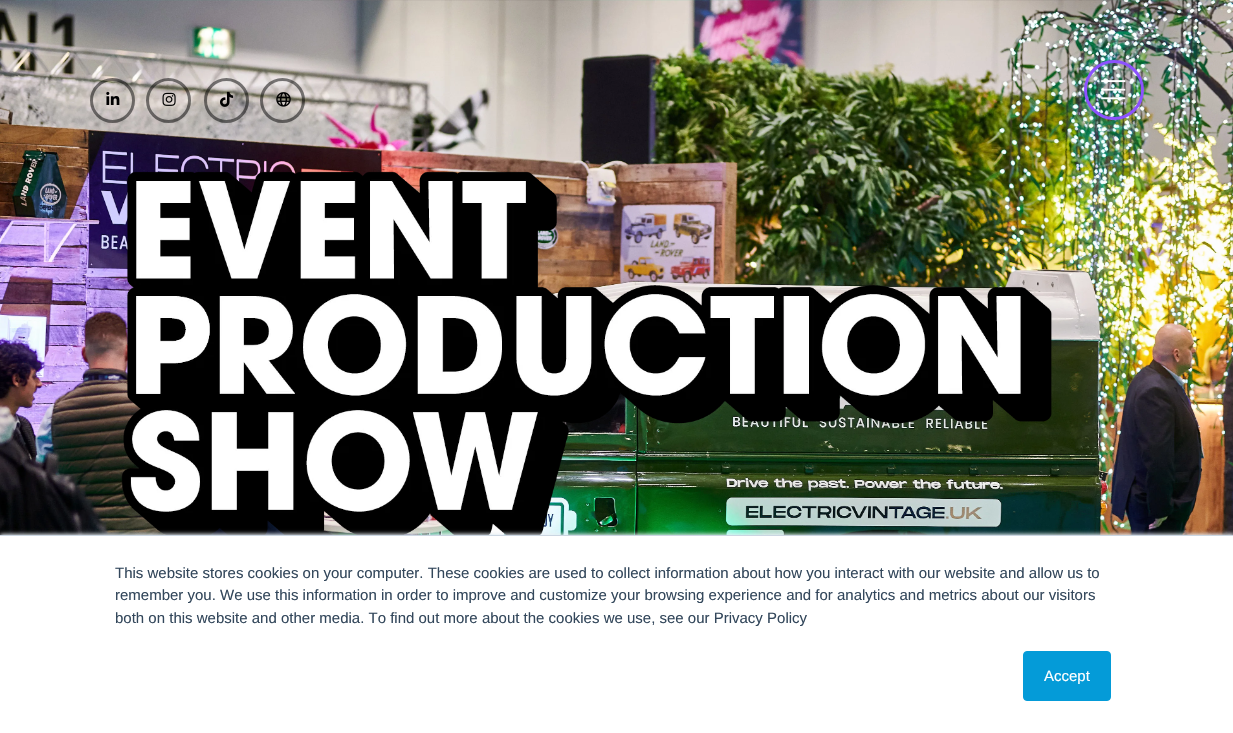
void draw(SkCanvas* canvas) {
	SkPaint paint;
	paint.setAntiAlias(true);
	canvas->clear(0xffffffff);
	canvas->drawImageRect(SkImages::DeferredFromEncodedData(SkData::MakeFromFileName("img1.png")), SkRect::MakeXYWH(0, 0, 1233, 535), SkSamplingOptions());
	paint.setStroke(true);
	paint.setStrokeWidth(3);
	paint.setColor(0x80000000);
	canvas->drawCircle(112.5, 100.5, 21, paint);
	canvas->drawImageRect(SkImages::DeferredFromEncodedData(SkData::MakeFromFileName("img2.png")), SkRect::MakeXYWH(106, 91, 14, 14), SkSamplingOptions());
	canvas->drawCircle(168.5, 100.5, 21, paint);
	canvas->drawImageRect(SkImages::DeferredFromEncodedData(SkData::MakeFromFileName("img3.png")), SkRect::MakeXYWH(162, 92, 14, 14), SkSamplingOptions());
	canvas->drawCircle(226.5, 100.5, 21, paint);
	canvas->drawImageRect(SkImages::DeferredFromEncodedData(SkData::MakeFromFileName("img4.png")), SkRect::MakeXYWH(220, 91, 14, 16), SkSamplingOptions());
	canvas->drawCircle(282.5, 100.5, 21, paint);
	canvas->drawImageRect(SkImages::DeferredFromEncodedData(SkData::MakeFromFileName("img5.png")), SkRect::MakeXYWH(276, 92, 15, 15), SkSamplingOptions());
	canvas->drawImageRect(SkImages::DeferredFromEncodedData(SkData::MakeFromFileName("img6.png")), SkRect::MakeXYWH(121, 171, 931, 364), SkSamplingOptions());
	paint.setColor(0xff8c52ff);
	canvas->drawCircle(1114, 90, 28.5, paint);
	canvas->drawImageRect(SkImages::DeferredFromEncodedData(SkData::MakeFromFileName("img7.png")), SkRect::MakeXYWH(1101, 80, 25, 20), SkSamplingOptions());
	paint.setStroke(false);
	paint.setColor(0xffeaf0f6);
	paint.setMaskFilter(SkMaskFilter::MakeBlur(kNormal_SkBlurStyle, 2));
	canvas->drawRect(SkRect::MakeXYWH(0, 534, 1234, 199), paint);
	paint.setMaskFilter(nullptr);
	paint.setColor(0xffffffff);
	canvas->drawRect(SkRect::MakeXYWH(0, 536, 1233, 197), paint);
	paint.setColor(0xffcbd6e2);
	canvas->drawRect(SkRect::MakeXYWH(0, 535, 1233, 1), paint);
	SkFont f1(fontMgr->matchFamilyStyle("Liberation Sans", SkFontStyle::Normal()), 15);
	f1.setSubpixel(true);
	paint.setColor(0xff33475b);
	canvas->drawString("This website stores cookies on your computer. These cookies are used to collect information about how you interact with our website and allow us to", 115, 578, f1, paint);
	canvas->drawString("remember you. We use this information in order to improve and customize your browsing experience and for analytics and metrics about our visitors", 115, 600, f1, paint);
	canvas->drawString("both on this website and other media. To find out more about the cookies we use, see our Privacy Policy", 115, 623, f1, paint);
	paint.setColor(0xff049bd8);
	canvas->drawRoundRect(SkRect::MakeXYWH(1023.5, 651.5, 87, 49), 3.5, 3.5, paint);
	paint.setStroke(true);
	paint.setStrokeWidth(1);
	canvas->drawRoundRect(SkRect::MakeXYWH(1023.5, 651.5, 87, 49), 3.5, 3.5, paint);
	paint.setStroke(false);
	paint.setColor(0xffffffff);
	canvas->drawString("Accept", 1044, 681, f1, paint);
}
